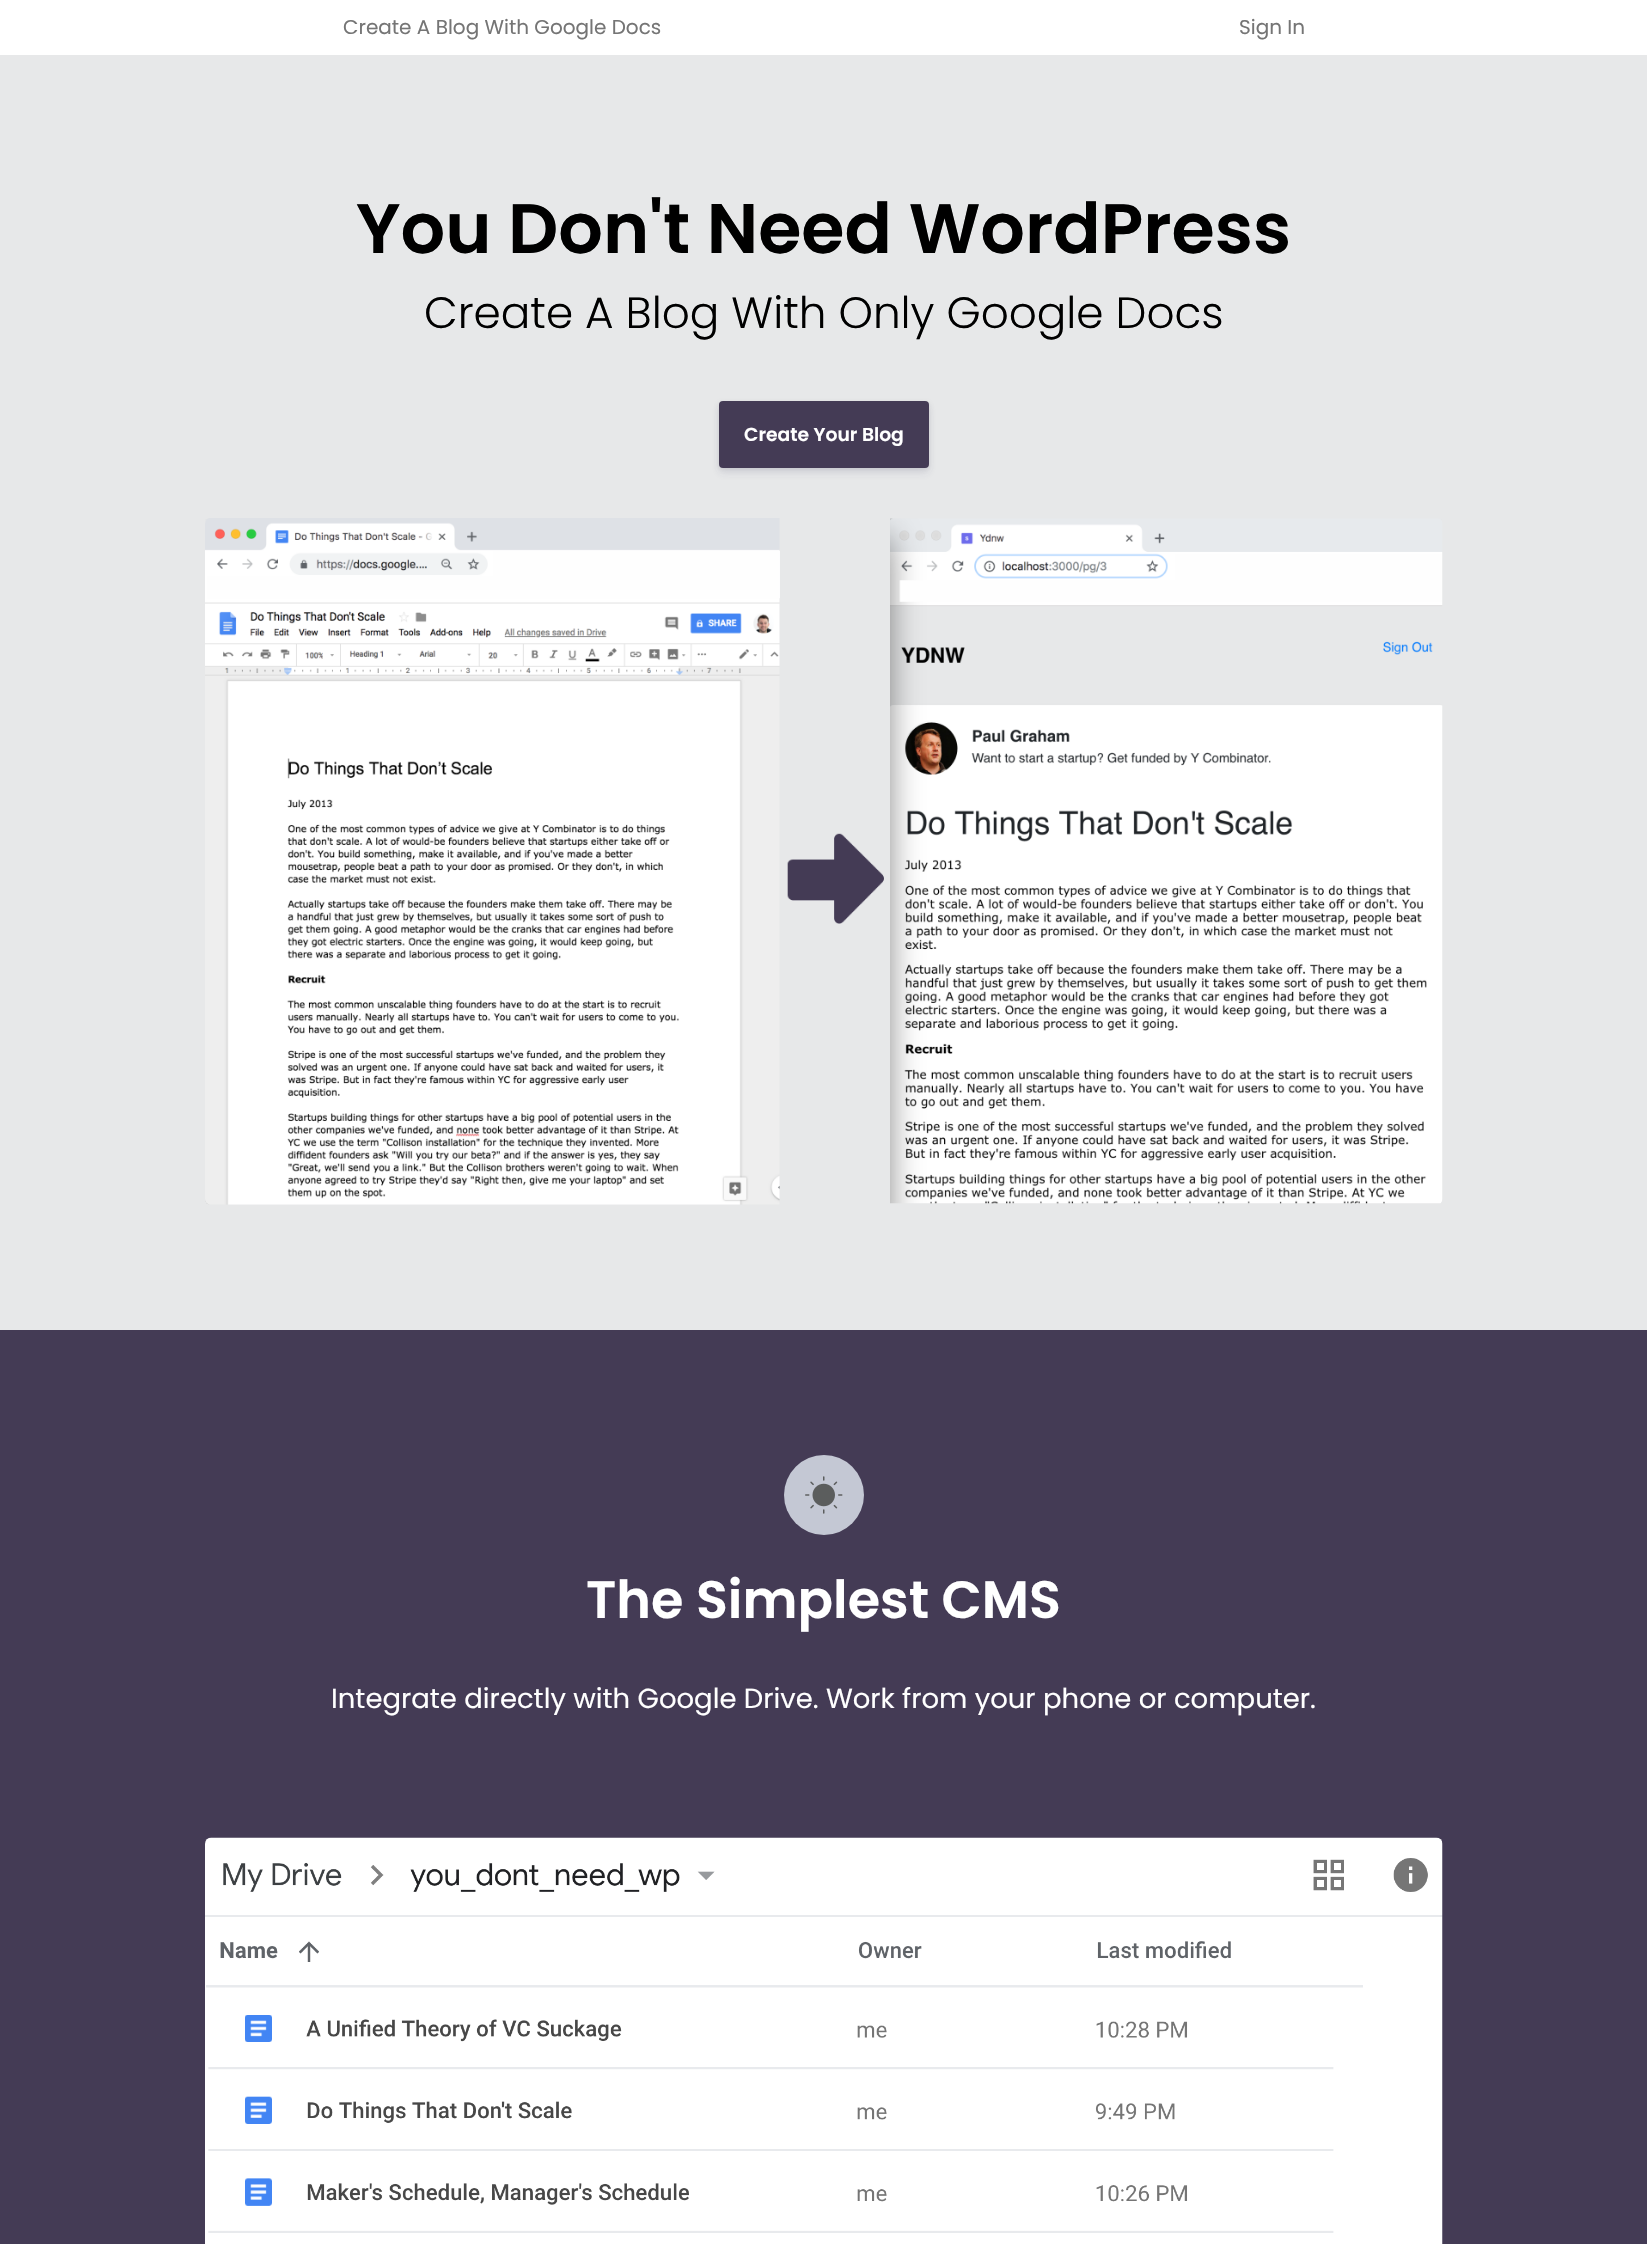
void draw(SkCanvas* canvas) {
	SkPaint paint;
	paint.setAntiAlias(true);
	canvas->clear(0xffe7e8e9);
	paint.setColor(0xffffffff);
	canvas->drawRect(SkRect::MakeXYWH(0, 0, 1647, 55), paint);
	SkFont f1(fontMgr->matchFamilyStyle("Poppins", SkFontStyle::Normal()), 20);
	f1.setSubpixel(true);
	paint.setColor(0xff757575);
	canvas->drawString("Create A Blog With Google Docs", 343, 34, f1, paint);
	canvas->drawString("Sign In", 1239, 34, f1, paint);
	SkFont f2(fontMgr->matchFamilyStyle("Poppins", SkFontStyle(600, SkFontStyle::kNormal_Width, SkFontStyle::kUpright_Slant)), 70);
	f2.setSubpixel(true);
	paint.setColor(0xff000000);
	canvas->drawString("You Don't Need WordPress", 356, 253, f2, paint);
	SkFont f3(fontMgr->matchFamilyStyle("Poppins", SkFontStyle(300, SkFontStyle::kNormal_Width, SkFontStyle::kUpright_Slant)), 43.75);
	f3.setSubpixel(true);
	canvas->drawString("Create A Blog With Only Google Docs", 424, 328, f3, paint);
	paint.setColor(0x14000000);
	paint.setMaskFilter(SkMaskFilter::MakeBlur(kNormal_SkBlurStyle, 2));
	canvas->drawRoundRect(SkRect::MakeXYWH(719, 403, 210, 66), 4, 4, paint);
	paint.setMaskFilter(nullptr);
	paint.setColor(0x1c32325d);
	paint.setMaskFilter(SkMaskFilter::MakeBlur(kNormal_SkBlurStyle, 4));
	canvas->drawRoundRect(SkRect::MakeXYWH(719, 406, 210, 67), 4, 4, paint);
	paint.setMaskFilter(nullptr);
	paint.setColor(0xff443b55);
	canvas->drawRoundRect(SkRect::MakeXYWH(719, 401, 210, 67), 4, 4, paint);
	SkFont f4(fontMgr->matchFamilyStyle("Poppins", SkFontStyle(600, SkFontStyle::kNormal_Width, SkFontStyle::kUpright_Slant)), 18.75);
	f4.setSubpixel(true);
	paint.setColor(0xffffffff);
	canvas->drawString("Create Your Blog", 744, 441, f4, paint);
	canvas->drawImageRect(SkImages::DeferredFromEncodedData(SkData::MakeFromFileName("img1.png")), SkRect::MakeXYWH(205, 518, 1238, 687), SkSamplingOptions());
	paint.setColor(0xff443b55);
	canvas->drawRect(SkRect::MakeXYWH(0, 1330, 1647, 914), paint);
	paint.setColor(0xffc4c8d4);
	canvas->drawCircle(824, 1495, 40, paint);
	canvas->drawImageRect(SkImages::DeferredFromEncodedData(SkData::MakeFromFileName("img2.png")), SkRect::MakeXYWH(805, 1476, 38, 38), SkSamplingOptions());
	SkFont f5(fontMgr->matchFamilyStyle("Poppins", SkFontStyle(600, SkFontStyle::kNormal_Width, SkFontStyle::kUpright_Slant)), 52.5);
	f5.setSubpixel(true);
	paint.setColor(0xffffffff);
	canvas->drawString("The Simplest CMS", 586, 1618, f5, paint);
	SkFont f6(fontMgr->matchFamilyStyle("Poppins", SkFontStyle::Normal()), 27.5);
	f6.setSubpixel(true);
	canvas->drawString("Integrate directly with Google Drive. Work from your phone or computer.", 331, 1708, f6, paint);
	canvas->drawImageRect(SkImages::DeferredFromEncodedData(SkData::MakeFromFileName("img3.png")), SkRect::MakeXYWH(205, 1837, 1238, 407), SkSamplingOptions());
}
